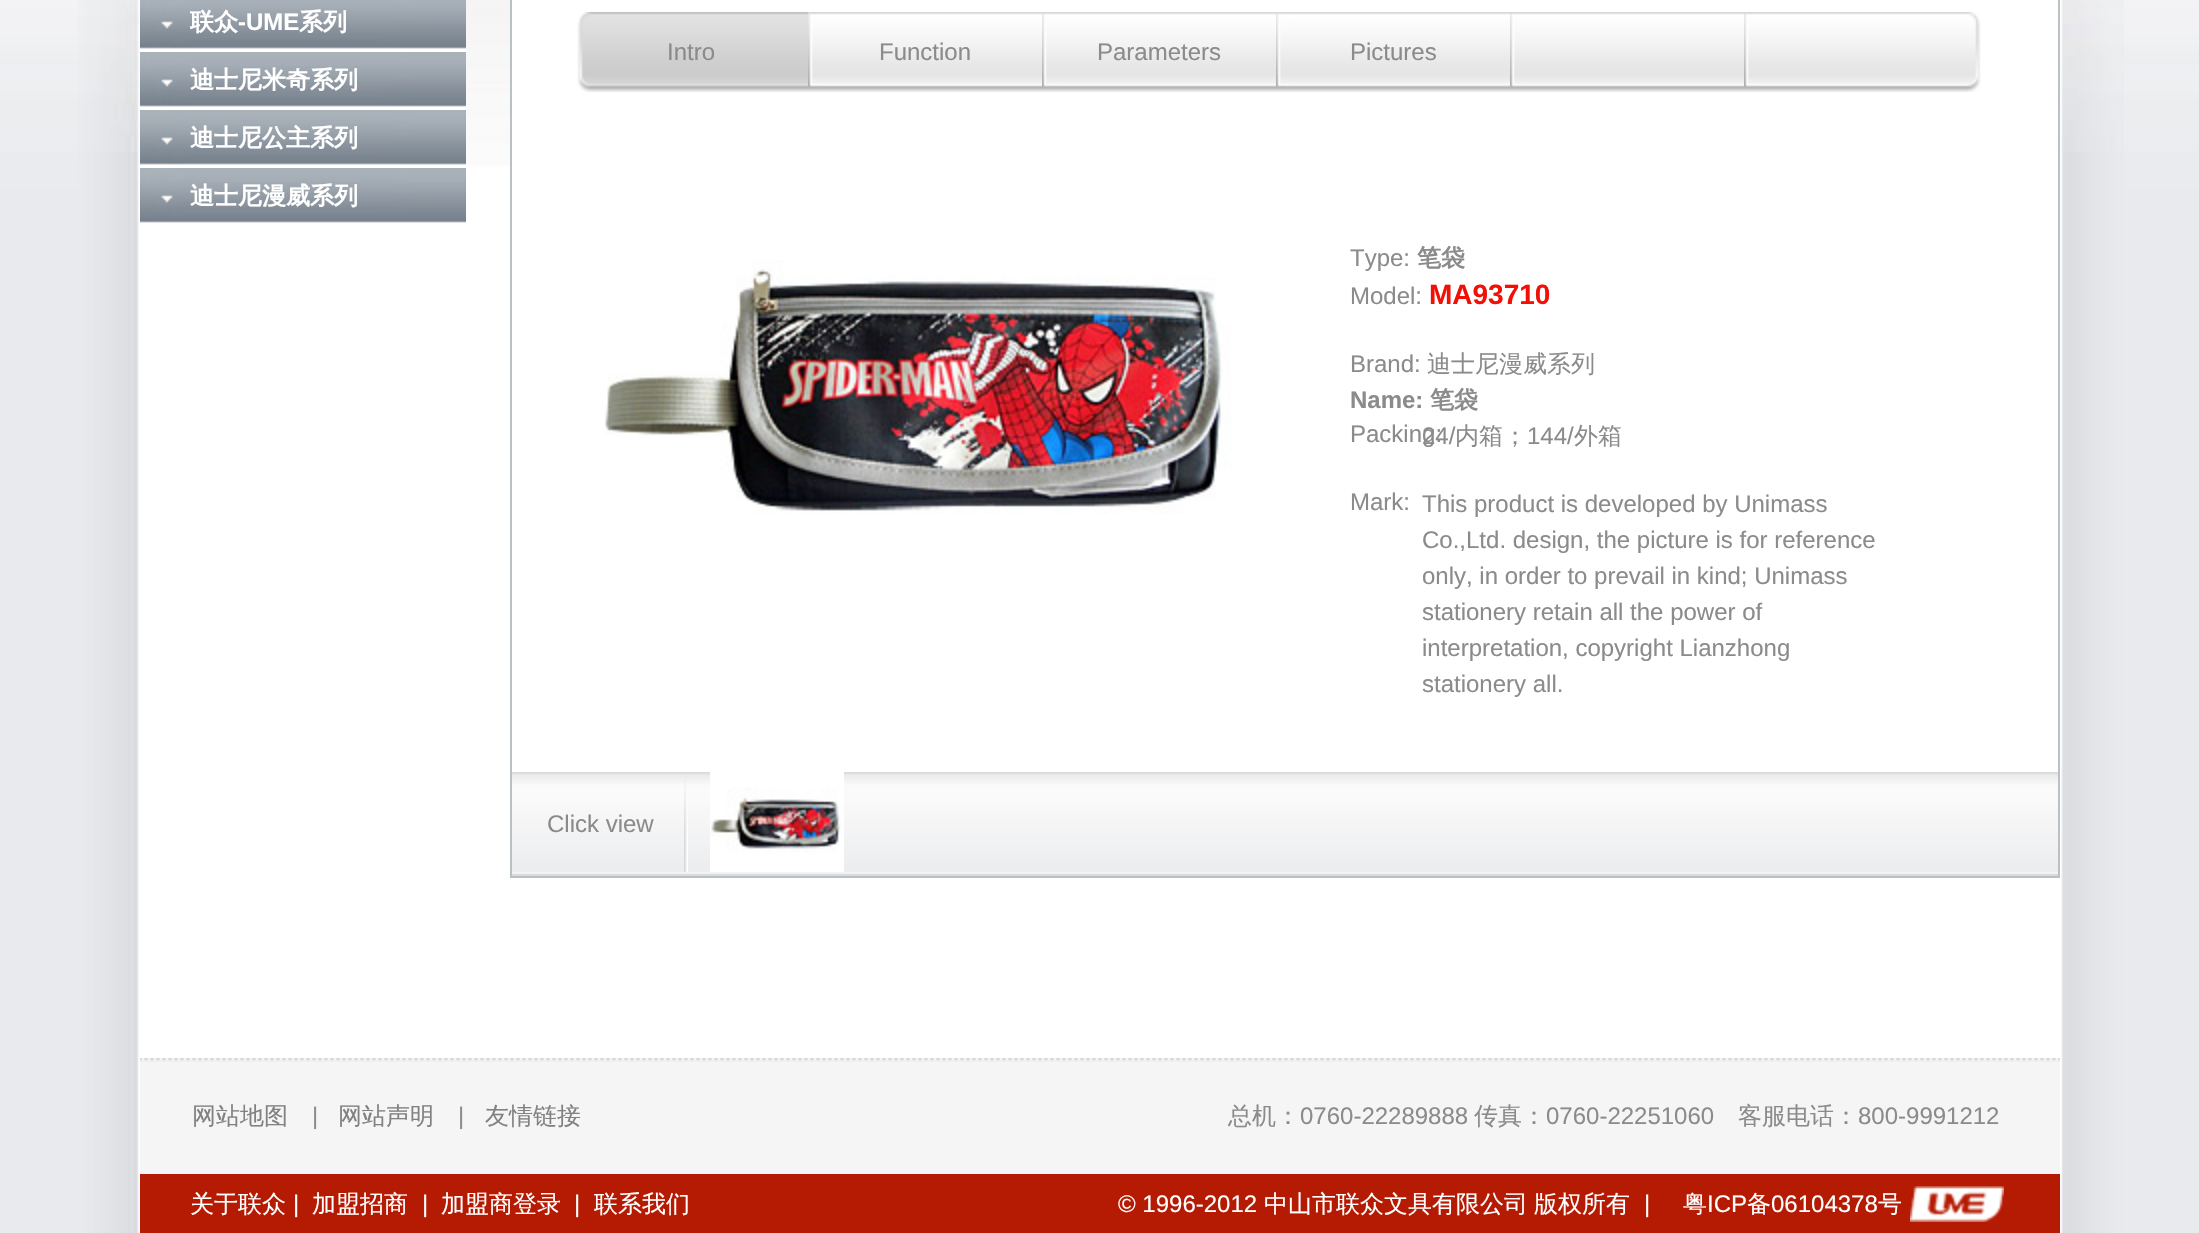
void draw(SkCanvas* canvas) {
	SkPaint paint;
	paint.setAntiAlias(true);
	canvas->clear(0xffffffff);
	canvas->drawImageRect(SkImages::DeferredFromEncodedData(SkData::MakeFromFileName("img1.png")), SkRect::MakeXYWH(0, 0, 2199, 1233), SkSamplingOptions());
	canvas->drawImageRect(SkImages::DeferredFromEncodedData(SkData::MakeFromFileName("img2.png")), SkRect::MakeXYWH(78, 152, 2046, 1081), SkSamplingOptions());
	canvas->drawImageRect(SkImages::DeferredFromEncodedData(SkData::MakeFromFileName("img3.png")), SkRect::MakeXYWH(78, 0, 2046, 152), SkSamplingOptions());
	canvas->drawImageRect(SkImages::DeferredFromEncodedData(SkData::MakeFromFileName("img4.png")), SkRect::MakeXYWH(466, 0, 44, 166), SkSamplingOptions());
	canvas->drawImageRect(SkImages::DeferredFromEncodedData(SkData::MakeFromFileName("img5.png")), SkRect::MakeXYWH(140, 0, 326, 50), SkSamplingOptions());
	SkFont f1(fontMgr->matchFamilyStyle("WenQuanYi Zen Hei", SkFontStyle::Bold()), 24);
	f1.setSubpixel(true);
	paint.setColor(0xffffffff);
	canvas->drawString("联众", 190, 30, f1, paint);
	SkFont f2(fontMgr->matchFamilyStyle("Liberation Sans", SkFontStyle::Bold()), 24);
	f2.setSubpixel(true);
	canvas->drawString("-UME", 238, 30, f2, paint);
	canvas->drawString("系列", 299, 30, f1, paint);
	canvas->drawImageRect(SkImages::DeferredFromEncodedData(SkData::MakeFromFileName("img6.png")), SkRect::MakeXYWH(140, 52, 326, 56), SkSamplingOptions());
	canvas->drawString("迪士尼米奇系列", 190, 88, f1, paint);
	canvas->drawImageRect(SkImages::DeferredFromEncodedData(SkData::MakeFromFileName("img6.png")), SkRect::MakeXYWH(140, 110, 326, 56), SkSamplingOptions());
	canvas->drawString("迪士尼公主系列", 190, 146, f1, paint);
	canvas->drawImageRect(SkImages::DeferredFromEncodedData(SkData::MakeFromFileName("img7.png")), SkRect::MakeXYWH(140, 168, 326, 55), SkSamplingOptions());
	canvas->drawString("迪士尼漫威系列", 190, 204, f1, paint);
	paint.setStroke(true);
	paint.setStrokeWidth(2);
	paint.setColor(0xffbac1c5);
	canvas->drawRect(SkRect::MakeXYWH(511, -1, 1548, 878), paint);
	canvas->drawImageRect(SkImages::DeferredFromEncodedData(SkData::MakeFromFileName("img8.png")), SkRect::MakeXYWH(577, 12, 231, 80), SkSamplingOptions());
	SkFont f3(fontMgr->matchFamilyStyle("Liberation Sans", SkFontStyle::Normal()), 24);
	f3.setSubpixel(true);
	paint.setStroke(false);
	paint.setColor(0xff8b8b8b);
	canvas->drawString("Intro", 667, 60, f3, paint);
	canvas->drawImageRect(SkImages::DeferredFromEncodedData(SkData::MakeFromFileName("img9.png")), SkRect::MakeXYWH(808, 12, 234, 80), SkSamplingOptions());
	canvas->drawString("Function", 879, 60, f3, paint);
	canvas->drawImageRect(SkImages::DeferredFromEncodedData(SkData::MakeFromFileName("img9.png")), SkRect::MakeXYWH(1042, 12, 234, 80), SkSamplingOptions());
	canvas->drawString("Parameters", 1097, 60, f3, paint);
	canvas->drawImageRect(SkImages::DeferredFromEncodedData(SkData::MakeFromFileName("img9.png")), SkRect::MakeXYWH(1276, 12, 234, 80), SkSamplingOptions());
	canvas->drawString("Pictures", 1350, 60, f3, paint);
	canvas->drawImageRect(SkImages::DeferredFromEncodedData(SkData::MakeFromFileName("img9.png")), SkRect::MakeXYWH(1510, 12, 234, 80), SkSamplingOptions());
	canvas->drawImageRect(SkImages::DeferredFromEncodedData(SkData::MakeFromFileName("img10.png")), SkRect::MakeXYWH(1744, 12, 237, 80), SkSamplingOptions());
	canvas->drawImageRect(SkImages::DeferredFromEncodedData(SkData::MakeFromFileName("img11.png")), SkRect::MakeXYWH(604, 260, 628, 254), SkSamplingOptions());
	canvas->drawString("Type:", 1350, 266, f3, paint);
	canvas->drawString("笔袋", 1417, 266, f1, paint);
	canvas->drawString("Model:", 1350, 304, f3, paint);
	SkFont f4(fontMgr->matchFamilyStyle("Liberation Sans", SkFontStyle::Bold()), 28);
	f4.setSubpixel(true);
	paint.setColor(0xfff20f06);
	canvas->drawString("MA93710", 1429, 304, f4, paint);
	paint.setColor(0xff8b8b8b);
	canvas->drawString("Brand:", 1350, 372, f3, paint);
	SkFont f5(fontMgr->matchFamilyStyle("WenQuanYi Zen Hei", SkFontStyle(500, SkFontStyle::kNormal_Width, SkFontStyle::kUpright_Slant)), 24);
	f5.setSubpixel(true);
	canvas->drawString("迪士尼漫威系列", 1427, 372, f5, paint);
	canvas->drawString("Name:", 1350, 408, f2, paint);
	canvas->drawString("笔袋", 1430, 408, f1, paint);
	canvas->drawString("Packing:", 1350, 442, f3, paint);
	canvas->drawString("24/", 1422, 444, f3, paint);
	canvas->drawString("内箱；", 1455, 444, f5, paint);
	canvas->drawString("144/", 1527, 444, f3, paint);
	canvas->drawString("外箱", 1574, 444, f5, paint);
	canvas->drawString("Mark:", 1350, 510, f3, paint);
	canvas->drawString("This product is developed by Unimass", 1422, 512, f3, paint);
	canvas->drawString("Co.,Ltd. design, the picture is for reference", 1422, 548, f3, paint);
	canvas->drawString("only, in order to prevail in kind; Unimass", 1422, 584, f3, paint);
	canvas->drawString("stationery retain all the power of", 1422, 620, f3, paint);
	canvas->drawString("interpretation, copyright Lianzhong", 1422, 656, f3, paint);
	canvas->drawString("stationery all.", 1422, 692, f3, paint);
	canvas->drawImageRect(SkImages::DeferredFromEncodedData(SkData::MakeFromFileName("img12.png")), SkRect::MakeXYWH(512, 772, 1546, 104), SkSamplingOptions());
	canvas->drawImageRect(SkImages::DeferredFromEncodedData(SkData::MakeFromFileName("img13.png")), SkRect::MakeXYWH(684, 780, 4, 92), SkSamplingOptions());
	canvas->drawString("Click view", 547, 832, f3, paint);
	canvas->drawImageRect(SkImages::DeferredFromEncodedData(SkData::MakeFromFileName("img14.png")), SkRect::MakeXYWH(710, 772, 134, 100), SkSamplingOptions());
	paint.setColor(0xfff5f5f5);
	canvas->drawRect(SkRect::MakeXYWH(140, 1062, 1920, 112), paint);
	canvas->drawImageRect(SkImages::DeferredFromEncodedData(SkData::MakeFromFileName("img15.png")), SkRect::MakeXYWH(140, 1058, 1920, 4), SkSamplingOptions());
	paint.setColor(0xff818181);
	canvas->drawString("网站地图", 192, 1124, f5, paint);
	paint.setColor(0xff8b8b8b);
	canvas->drawString("|", 312, 1124, f3, paint);
	paint.setColor(0xff818181);
	canvas->drawString("网站声明", 338, 1124, f5, paint);
	paint.setColor(0xff8b8b8b);
	canvas->drawString("|", 458, 1124, f3, paint);
	paint.setColor(0xff818181);
	canvas->drawString("友情链接", 485, 1124, f5, paint);
	paint.setColor(0xff8b8b8b);
	canvas->drawString("总机：", 1228, 1124, f5, paint);
	canvas->drawString("0760-22289888", 1300, 1124, f3, paint);
	canvas->drawString("传真：", 1474, 1124, f5, paint);
	canvas->drawString("0760-22251060", 1546, 1124, f3, paint);
	canvas->drawString("客服电话：", 1738, 1124, f5, paint);
	canvas->drawString("800-9991212", 1858, 1124, f3, paint);
	paint.setColor(0xffb51a02);
	canvas->drawRect(SkRect::MakeXYWH(140, 1174, 1920, 59), paint);
	paint.setColor(0xffffffff);
	canvas->drawString("关于联众", 190, 1212, f5, paint);
	canvas->drawString("|", 293, 1212, f3, paint);
	canvas->drawString("加盟招商", 312, 1212, f5, paint);
	canvas->drawString("|", 422, 1212, f3, paint);
	canvas->drawString("加盟商登录", 441, 1212, f5, paint);
	canvas->drawString("|", 574, 1212, f3, paint);
	canvas->drawString("联系我们", 594, 1212, f5, paint);
	canvas->drawImageRect(SkImages::DeferredFromEncodedData(SkData::MakeFromFileName("img16.png")), SkRect::MakeXYWH(1910, 1186, 94, 36), SkSamplingOptions());
	canvas->drawString("© 1996-2012", 1118, 1212, f3, paint);
	canvas->drawString("中山市联众文具有限公司", 1264, 1212, f5, paint);
	canvas->drawString("版权所有", 1534, 1212, f5, paint);
	canvas->drawString("|", 1644, 1212, f3, paint);
	canvas->drawString("粤", 1683, 1212, f5, paint);
	canvas->drawString("ICP", 1707, 1212, f3, paint);
	canvas->drawString("备", 1747, 1212, f5, paint);
	canvas->drawString("06104378", 1771, 1212, f3, paint);
	canvas->drawString("号", 1878, 1212, f5, paint);
}
